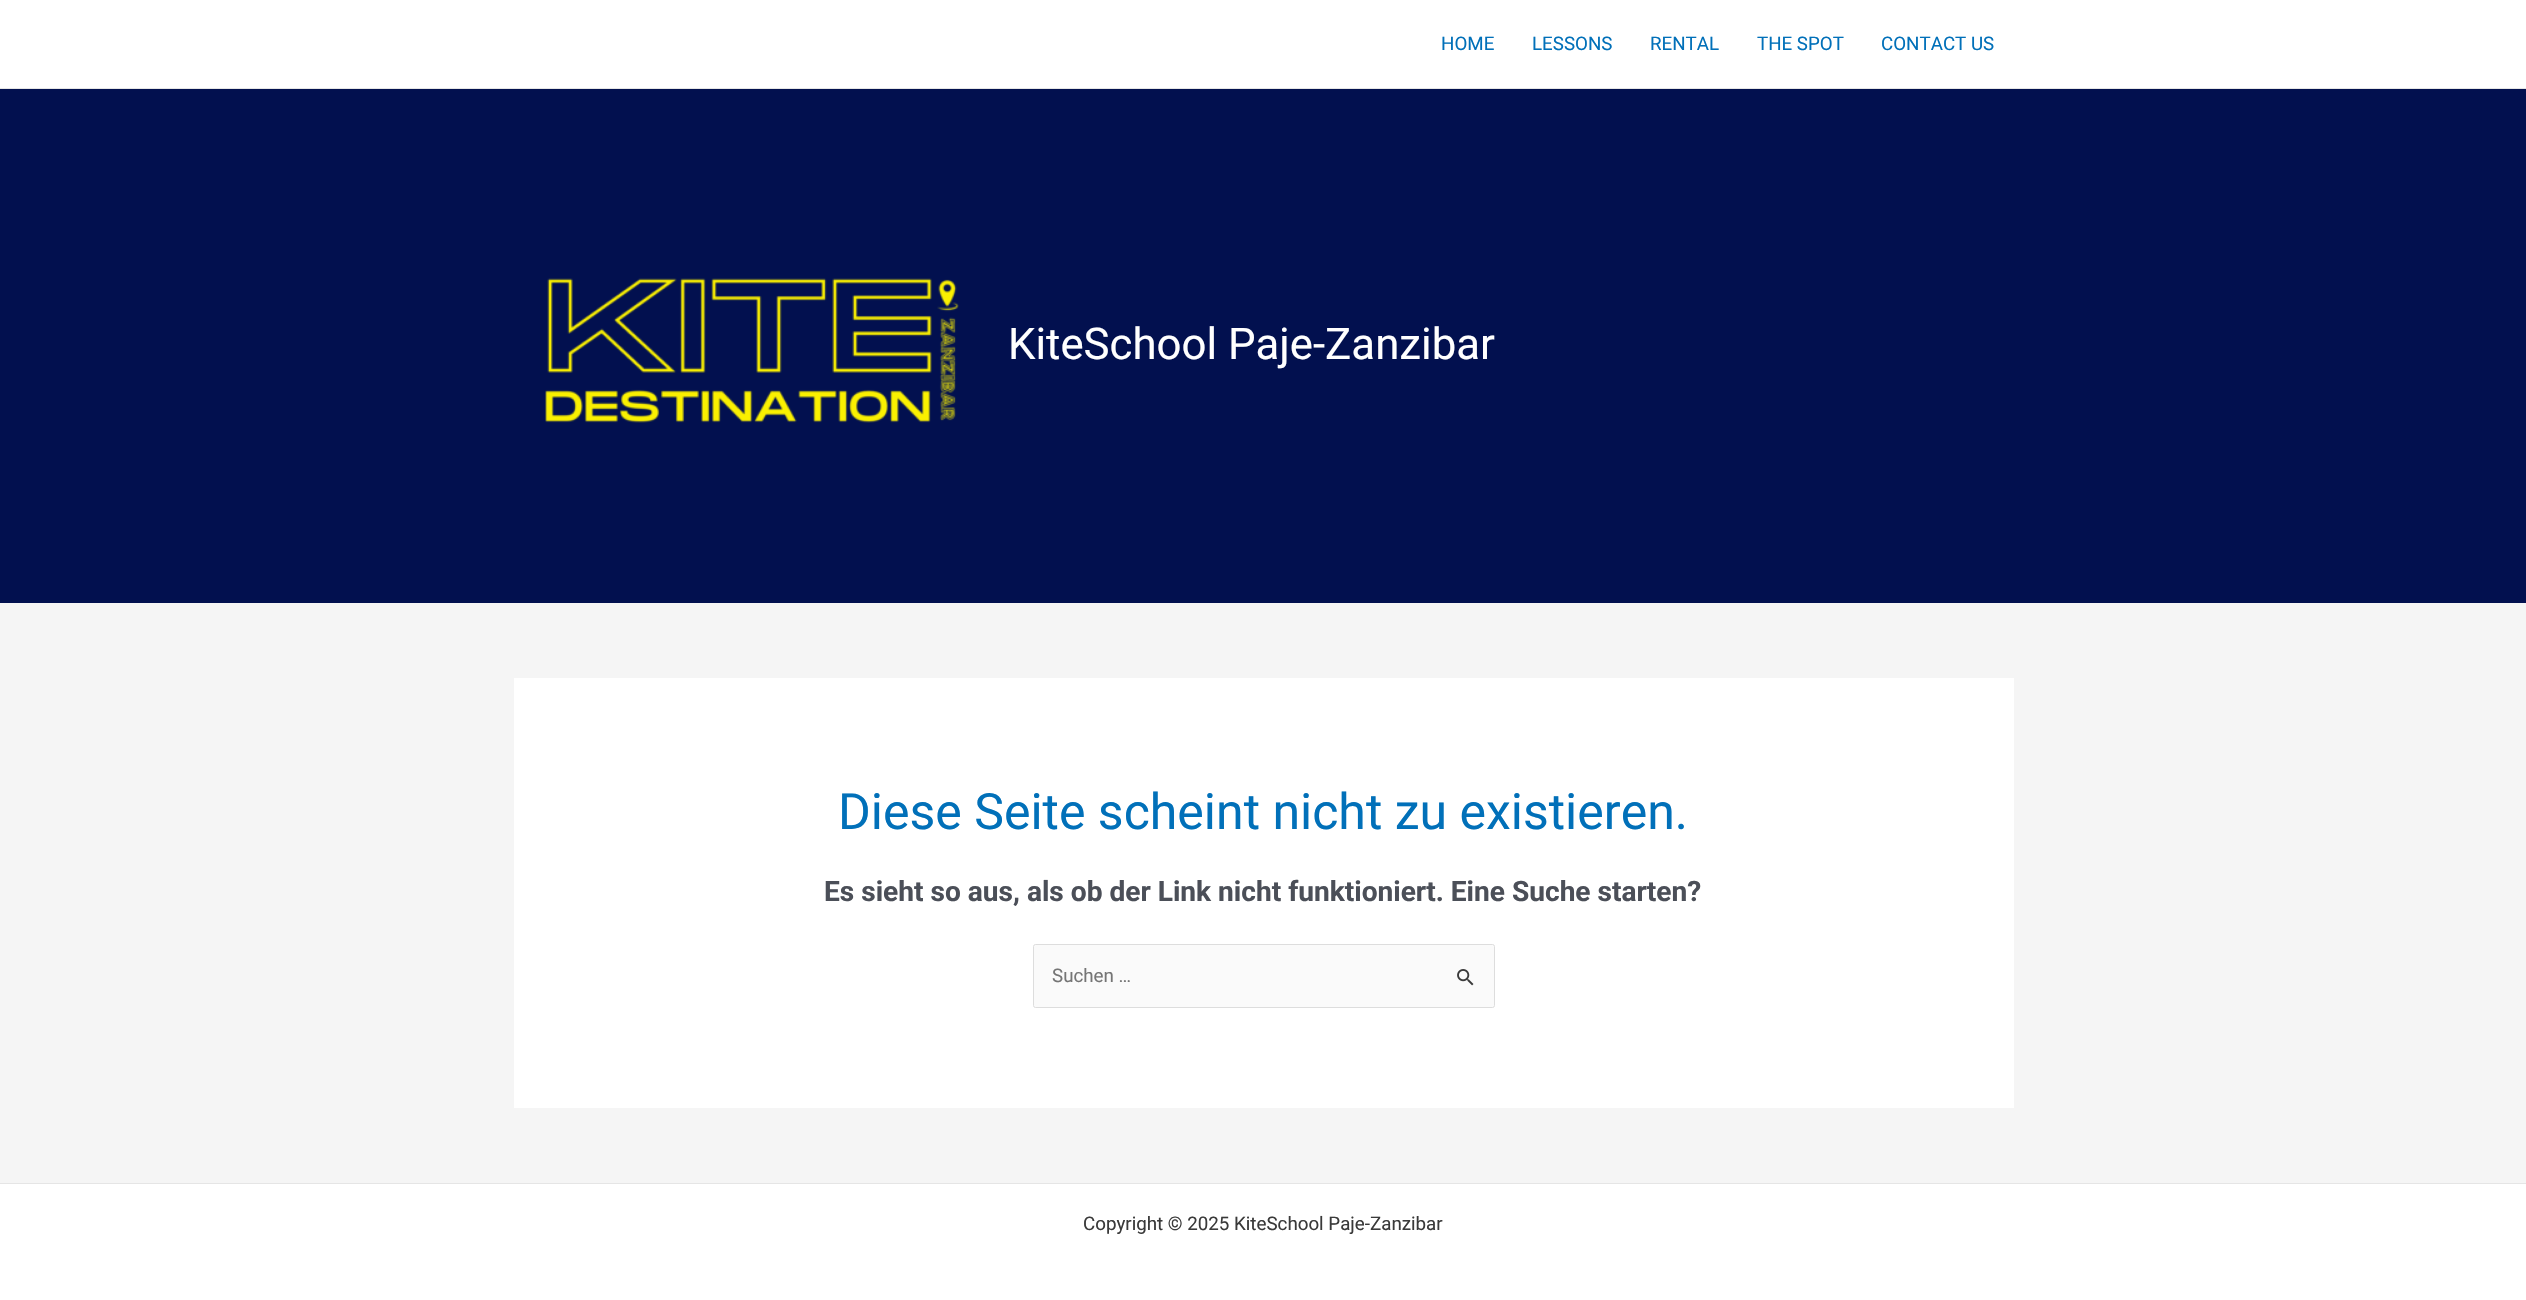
void draw(SkCanvas* canvas) {
	SkPaint paint;
	paint.setAntiAlias(true);
	canvas->clear(0xfff5f5f5);
	paint.setColor(0xffffffff);
	canvas->drawRect(SkRect::MakeXYWH(0, 0, 2526, 88), paint);
	paint.setColor(0xffe5e5e5);
	canvas->drawRect(SkRect::MakeXYWH(0, 88, 2526, 1), paint);
	SkFont f1(fontMgr->matchFamilyStyle("Roboto", SkFontStyle::Normal()), 18.75);
	f1.setSubpixel(true);
	paint.setColor(0xff0170b9);
	canvas->drawString("HOME", 1441, 50, f1, paint);
	canvas->drawString("LESSONS", 1532, 50, f1, paint);
	canvas->drawString("RENTAL", 1650, 50, f1, paint);
	canvas->drawString("THE SPOT", 1757, 50, f1, paint);
	canvas->drawString("CONTACT US", 1881, 50, f1, paint);
	paint.setColor(0xff02104f);
	canvas->drawRect(SkRect::MakeXYWH(0, 89, 2526, 514), paint);
	canvas->drawImageRect(SkImages::DeferredFromEncodedData(SkData::MakeFromFileName("img1.png")), SkRect::MakeXYWH(545, 278, 414, 145), SkSamplingOptions());
	SkFont f2(fontMgr->matchFamilyStyle("Roboto", SkFontStyle::Normal()), 43.75);
	f2.setSubpixel(true);
	paint.setColor(0xffffffff);
	canvas->drawString("KiteSchool Paje-Zanzibar", 1008, 359, f2, paint);
	canvas->drawRect(SkRect::MakeXYWH(514, 678, 1500, 430), paint);
	SkFont f3(fontMgr->matchFamilyStyle("Roboto", SkFontStyle::Normal()), 50);
	f3.setSubpixel(true);
	paint.setColor(0xff0170b9);
	canvas->drawString("Diese Seite scheint nicht zu existieren.", 838, 829, f3, paint);
	SkFont f4(fontMgr->matchFamilyStyle("Roboto", SkFontStyle::Bold()), 28.1);
	f4.setSubpixel(true);
	paint.setColor(0xff4b4f58);
	canvas->drawString("Es sieht so aus, als ob der Link nicht funktioniert. Eine Suche starten?", 824, 901, f4, paint);
	paint.setColor(0xfffafafa);
	canvas->drawRoundRect(SkRect::MakeXYWH(1033.5, 944.5, 461, 63), 2, 2, paint);
	paint.setStroke(true);
	paint.setStrokeWidth(1);
	paint.setColor(0xffdddddd);
	canvas->drawRoundRect(SkRect::MakeXYWH(1033.5, 944.5, 461, 63), 2, 2, paint);
	paint.setStroke(false);
	paint.setColor(0xff757575);
	canvas->drawString("Suchen …", 1052, 982, f1, paint);
	canvas->drawImageRect(SkImages::DeferredFromEncodedData(SkData::MakeFromFileName("img2.png")), SkRect::MakeXYWH(1457, 969, 17, 17), SkSamplingOptions());
	paint.setColor(0xffffffff);
	canvas->drawRect(SkRect::MakeXYWH(0, 1184, 2526, 116), paint);
	paint.setColor(0xffe5e5e5);
	canvas->drawRect(SkRect::MakeXYWH(0, 1183, 2526, 1), paint);
	paint.setColor(0xff3a3a3a);
	canvas->drawString("Copyright © 2025 KiteSchool Paje-Zanzibar", 1083, 1230, f1, paint);
}
